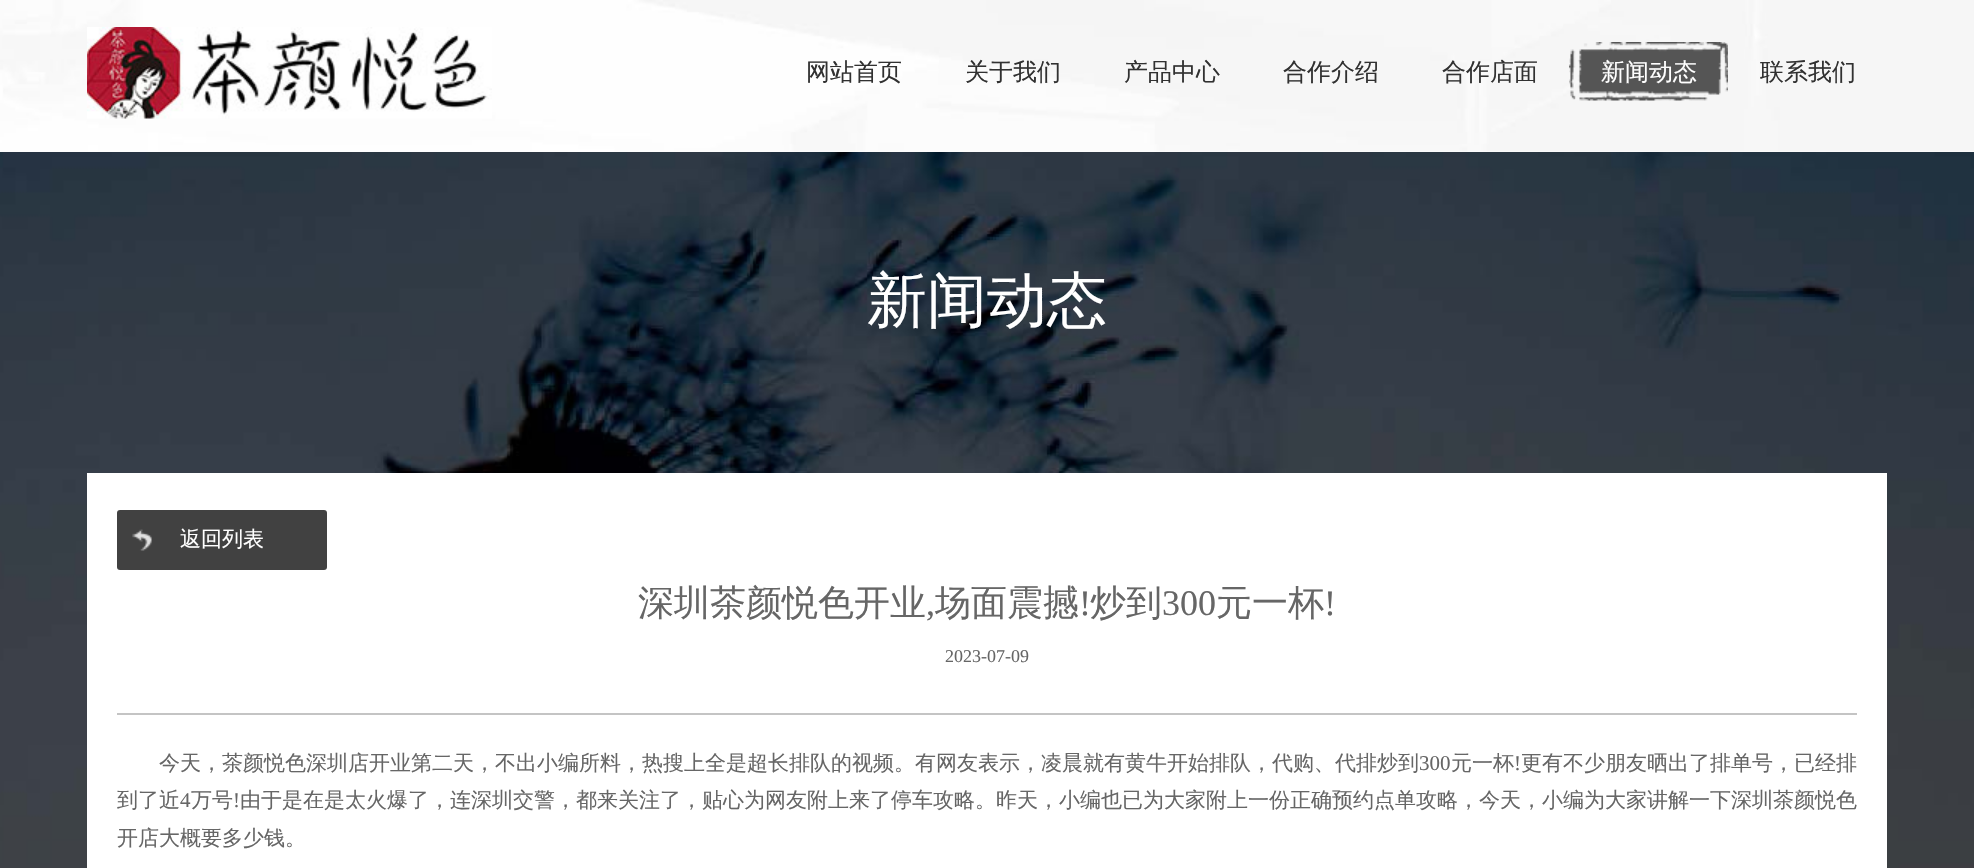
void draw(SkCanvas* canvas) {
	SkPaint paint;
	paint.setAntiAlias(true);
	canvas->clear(0xffffffff);
	canvas->drawImageRect(SkImages::DeferredFromEncodedData(SkData::MakeFromFileName("img1.png")), SkRect::MakeXYWH(0, 0, 1974, 152), SkSamplingOptions());
	canvas->drawImageRect(SkImages::DeferredFromEncodedData(SkData::MakeFromFileName("img2.png")), SkRect::MakeXYWH(87, 27, 405, 92), SkSamplingOptions());
	SkFont f1(fontMgr->matchFamilyStyle("WenQuanYi Zen Hei", SkFontStyle(500, SkFontStyle::kNormal_Width, SkFontStyle::kUpright_Slant)), 24);
	f1.setSubpixel(true);
	paint.setColor(0xff313131);
	canvas->drawString("网站首页", 806, 80, f1, paint);
	canvas->drawString("关于我们", 965, 80, f1, paint);
	canvas->drawString("产品中心", 1124, 80, f1, paint);
	canvas->drawString("合作介绍", 1283, 80, f1, paint);
	canvas->drawString("合作店面", 1442, 80, f1, paint);
	canvas->drawImageRect(SkImages::DeferredFromEncodedData(SkData::MakeFromFileName("img3.png")), SkRect::MakeXYWH(1569, 42, 159, 59), SkSamplingOptions());
	paint.setColor(0xffffffff);
	canvas->drawString("新闻动态", 1601, 80, f1, paint);
	paint.setColor(0xff313131);
	canvas->drawString("联系我们", 1760, 80, f1, paint);
	canvas->drawImageRect(SkImages::DeferredFromEncodedData(SkData::MakeFromFileName("img4.png")), SkRect::MakeXYWH(0, 152, 1974, 716), SkSamplingOptions());
	SkFont f2(fontMgr->matchFamilyStyle("WenQuanYi Zen Hei", SkFontStyle(500, SkFontStyle::kNormal_Width, SkFontStyle::kUpright_Slant)), 60);
	f2.setSubpixel(true);
	paint.setColor(0xffffffff);
	canvas->drawString("新闻动态", 867, 321, f2, paint);
	canvas->drawRect(SkRect::MakeXYWH(87, 473, 1800, 395), paint);
	paint.setColor(0xff414141);
	canvas->drawRoundRect(SkRect::MakeXYWH(117, 510, 210, 60), 3, 3, paint);
	canvas->drawImageRect(SkImages::DeferredFromEncodedData(SkData::MakeFromFileName("img5.png")), SkRect::MakeXYWH(132, 529, 20, 22), SkSamplingOptions());
	SkFont f3(fontMgr->matchFamilyStyle("WenQuanYi Zen Hei", SkFontStyle(500, SkFontStyle::kNormal_Width, SkFontStyle::kUpright_Slant)), 21);
	f3.setSubpixel(true);
	paint.setColor(0xffffffff);
	canvas->drawString("返回列表", 180, 546, f3, paint);
	paint.setColor(0xffc4c4c4);
	canvas->drawRect(SkRect::MakeXYWH(117, 713, 1740, 2), paint);
	SkFont f4(fontMgr->matchFamilyStyle("WenQuanYi Zen Hei", SkFontStyle(500, SkFontStyle::kNormal_Width, SkFontStyle::kUpright_Slant)), 36);
	f4.setSubpixel(true);
	paint.setColor(0xff666666);
	canvas->drawString("深圳茶颜悦色开业", 638, 615, f4, paint);
	SkFont f5(fontMgr->matchFamilyStyle("Liberation Serif", SkFontStyle::Normal()), 36);
	f5.setSubpixel(true);
	canvas->drawString(",", 926, 615, f5, paint);
	canvas->drawString("场面震撼", 935, 615, f4, paint);
	canvas->drawString("!", 1079, 615, f5, paint);
	canvas->drawString("炒到", 1090, 615, f4, paint);
	canvas->drawString("300", 1162, 615, f5, paint);
	canvas->drawString("元一杯", 1216, 615, f4, paint);
	canvas->drawString("!", 1324, 615, f5, paint);
	SkFont f6(fontMgr->matchFamilyStyle("Liberation Serif", SkFontStyle::Normal()), 18);
	f6.setSubpixel(true);
	canvas->drawString("2023-07-09", 945, 662, f6, paint);
	canvas->drawString("今天，茶颜悦色深圳店开业第二天，不出小编所料，热搜上全是超长排队的视频。有网友表示，凌晨就有黄牛开始排队，代购、代排炒到", 159, 770, f3, paint);
	SkFont f7(fontMgr->matchFamilyStyle("Liberation Serif", SkFontStyle::Normal()), 21);
	f7.setSubpixel(true);
	canvas->drawString("300", 1419, 770, f7, paint);
	canvas->drawString("元一杯", 1451, 770, f3, paint);
	canvas->drawString("!", 1514, 770, f7, paint);
	canvas->drawString("更有不少朋友晒出了排单号，已经排", 1521, 770, f3, paint);
	canvas->drawString("到了近", 117, 807, f3, paint);
	canvas->drawString("4", 180, 807, f7, paint);
	canvas->drawString("万号", 191, 807, f3, paint);
	canvas->drawString("!", 233, 807, f7, paint);
	canvas->drawString("由于是在是太火爆了，连深圳交警，都来关注了，贴心为网友附上来了停车攻略。昨天，小编也已为大家附上一份正确预约点单攻略，今天，小编为大家讲解一下深圳茶颜悦色", 240, 807, f3, paint);
	canvas->drawString("开店大概要多少钱。", 117, 845, f3, paint);
}
